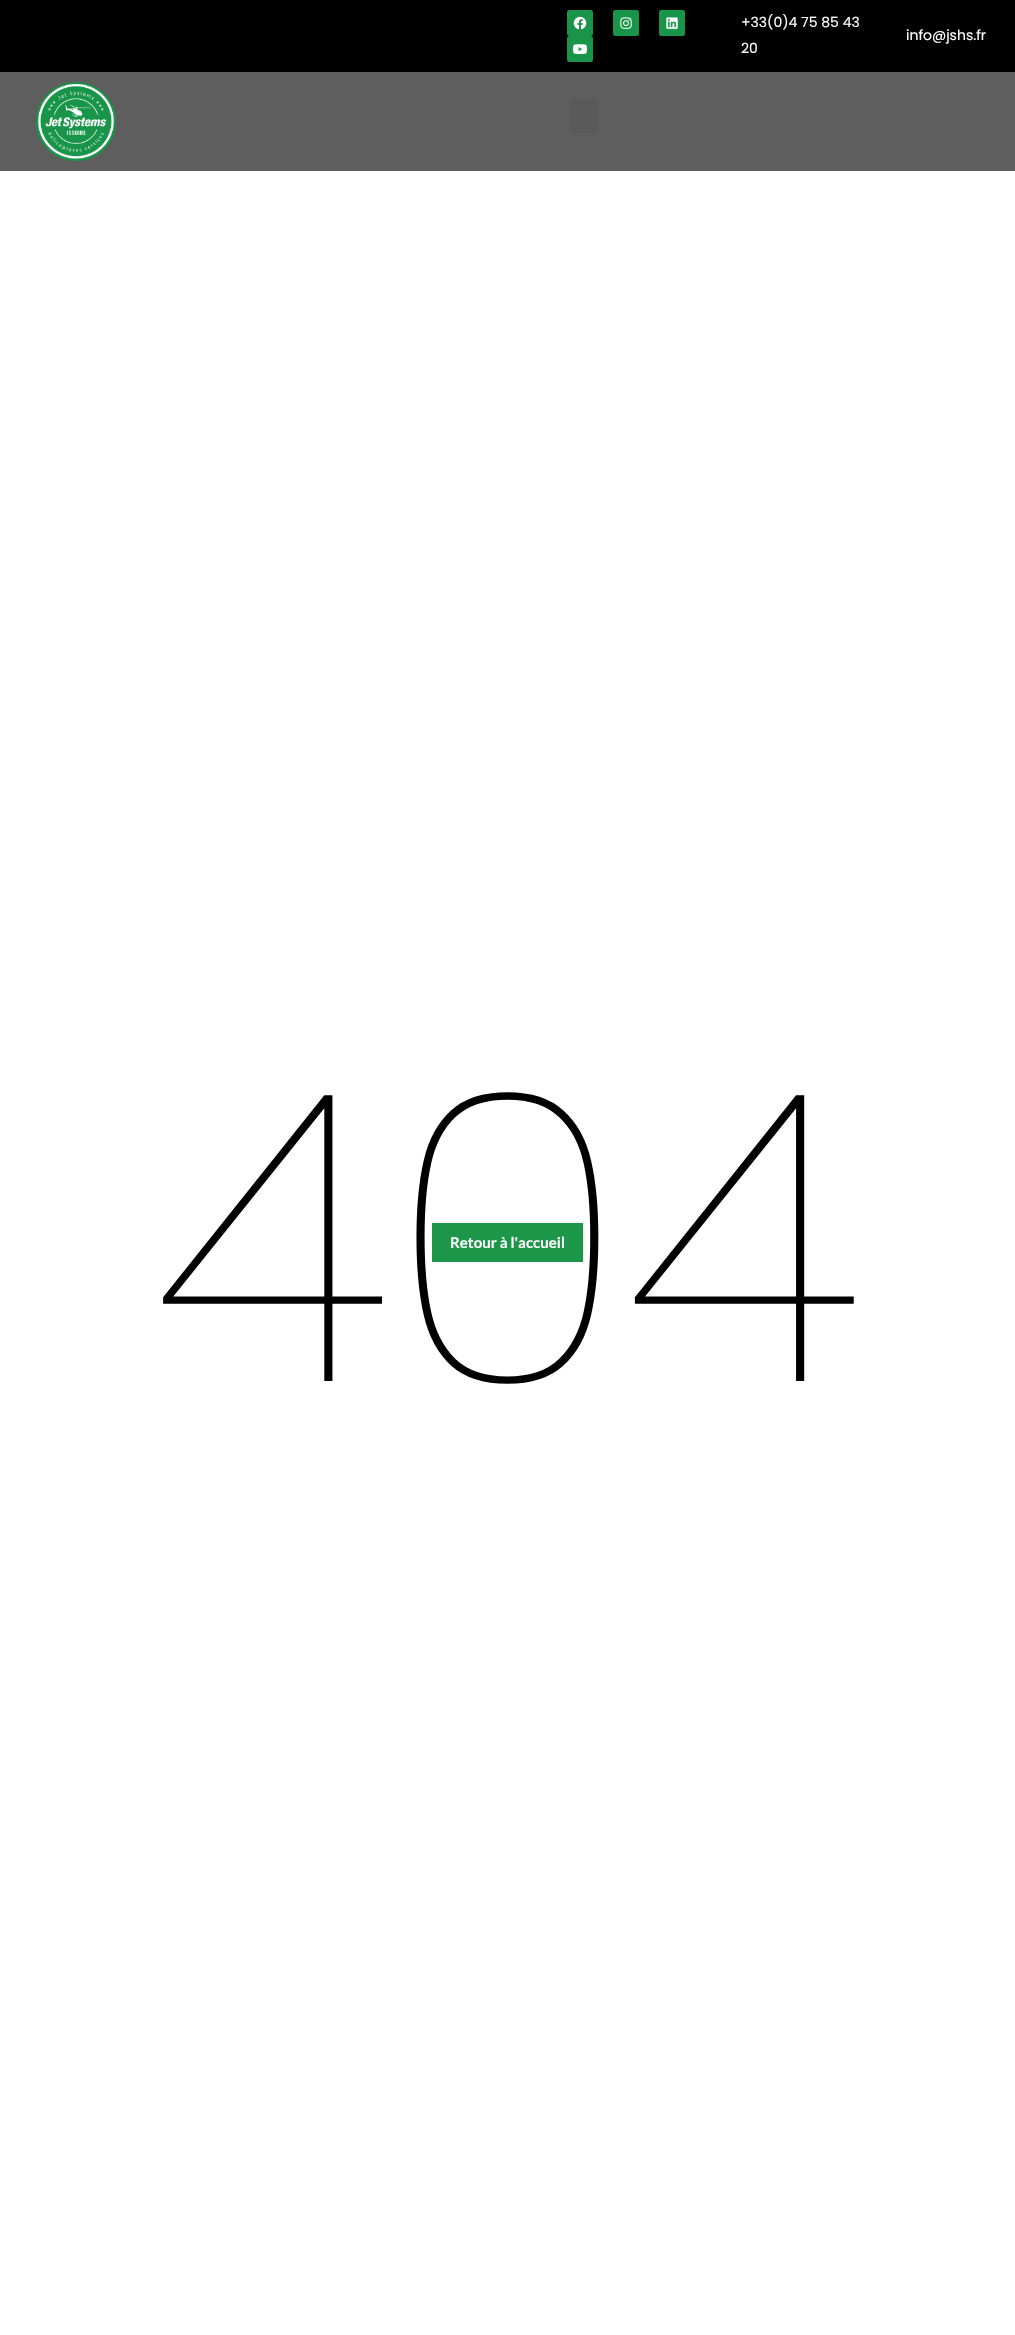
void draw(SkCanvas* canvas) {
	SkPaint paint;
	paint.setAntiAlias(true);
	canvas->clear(0xffffffff);
	paint.setColor(0xff000000);
	canvas->drawRect(SkRect::MakeXYWH(0, 0, 1015, 72), paint);
	paint.setColor(0xff189548);
	canvas->drawRoundRect(SkRect::MakeXYWH(567, 10, 26, 26), 2.5, 2.5, paint);
	canvas->drawImageRect(SkImages::DeferredFromEncodedData(SkData::MakeFromFileName("img1.png")), SkRect::MakeXYWH(573, 16, 14, 14), SkSamplingOptions());
	canvas->drawRoundRect(SkRect::MakeXYWH(613, 10, 26, 26), 2.5, 2.5, paint);
	canvas->drawImageRect(SkImages::DeferredFromEncodedData(SkData::MakeFromFileName("img2.png")), SkRect::MakeXYWH(620, 17, 12, 12), SkSamplingOptions());
	canvas->drawRoundRect(SkRect::MakeXYWH(659, 10, 26, 26), 2.5, 2.5, paint);
	canvas->drawImageRect(SkImages::DeferredFromEncodedData(SkData::MakeFromFileName("img3.png")), SkRect::MakeXYWH(666, 17, 12, 12), SkSamplingOptions());
	canvas->drawRoundRect(SkRect::MakeXYWH(567, 36, 26, 26), 2.5, 2.5, paint);
	canvas->drawImageRect(SkImages::DeferredFromEncodedData(SkData::MakeFromFileName("img4.png")), SkRect::MakeXYWH(573, 44, 14, 10), SkSamplingOptions());
	SkFont f1(fontMgr->matchFamilyStyle("Poppins", SkFontStyle::Normal()), 14);
	f1.setSubpixel(true);
	paint.setColor(0xffffffff);
	canvas->drawString("+33(0)4 75 85 43", 741, 27, f1, paint);
	canvas->drawString("20", 741, 53, f1, paint);
	canvas->drawString("info@jshs.fr", 906, 40, f1, paint);
	paint.setColor(0xff5e5e5e);
	canvas->drawRect(SkRect::MakeXYWH(0, 72, 1015, 99), paint);
	canvas->drawImageRect(SkImages::DeferredFromEncodedData(SkData::MakeFromFileName("img5.png")), SkRect::MakeXYWH(36, 82, 80, 79), SkSamplingOptions());
	paint.setColor(0xff595959);
	canvas->drawRoundRect(SkRect::MakeXYWH(570, 100, 28, 33), 3, 3, paint);
	SkFont f2(fontMgr->matchFamilyStyle("Poppins", SkFontStyle(100, SkFontStyle::kNormal_Width, SkFontStyle::kUpright_Slant)), 406);
	f2.setSubpixel(true);
	paint.setColor(0xff000000);
	canvas->drawString("404", 155, 1381, f2, paint);
	paint.setColor(0xff1c9648);
	canvas->drawRect(SkRect::MakeXYWH(432, 1223, 151, 39), paint);
	SkFont f3(fontMgr->matchFamilyStyle("Lato", SkFontStyle::Bold()), 15);
	f3.setSubpixel(true);
	paint.setColor(0xffffffff);
	canvas->drawString("Retour à l'accueil", 450, 1248, f3, paint);
}
